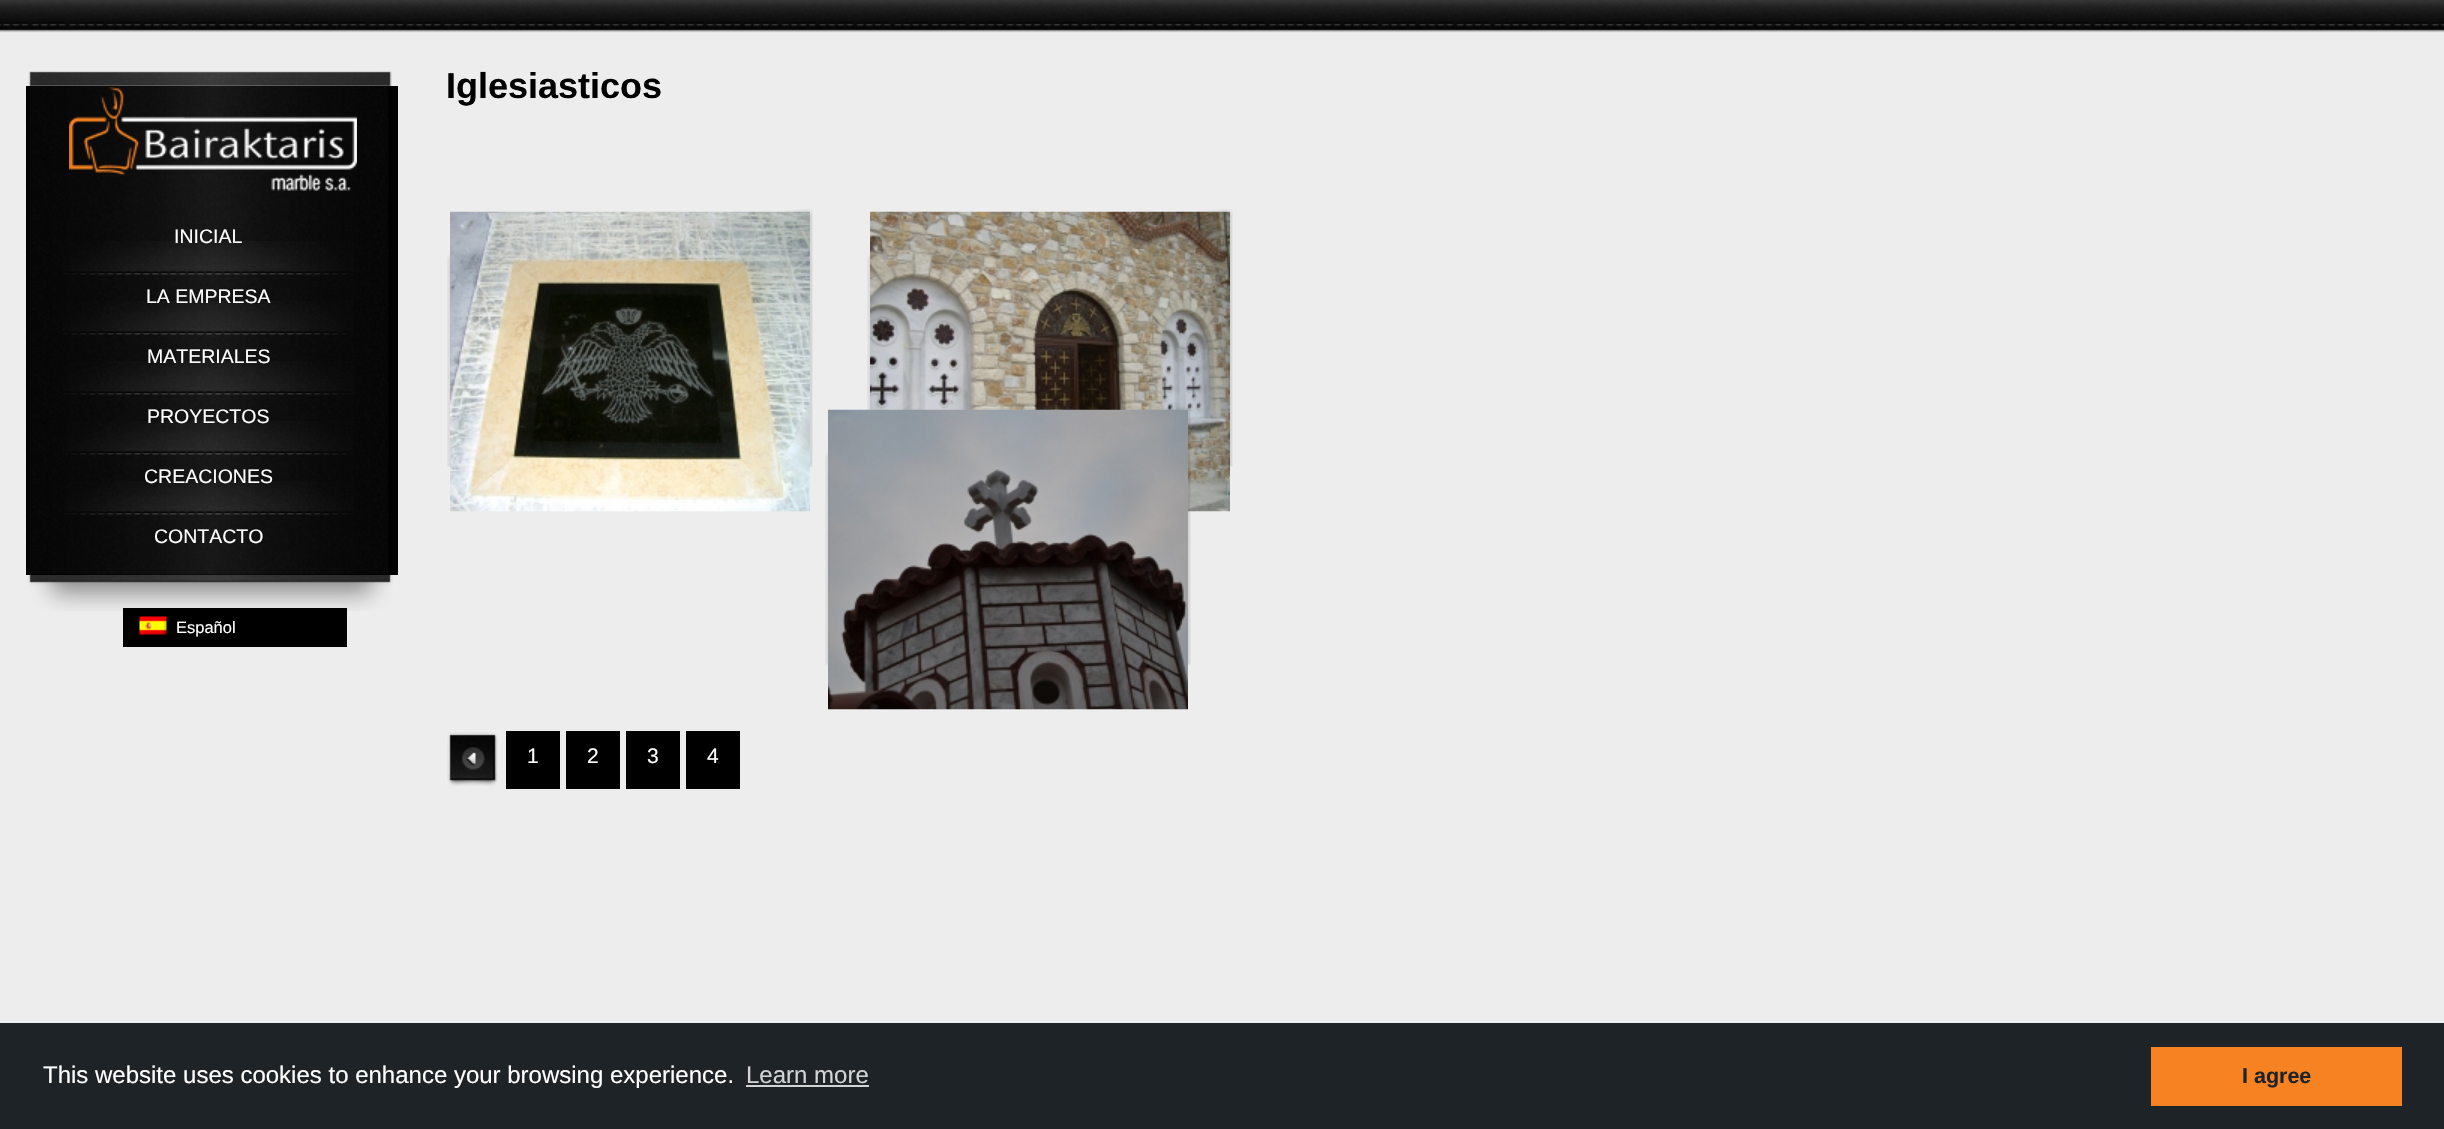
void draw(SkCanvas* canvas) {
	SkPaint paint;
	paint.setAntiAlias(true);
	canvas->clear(0xffededed);
	canvas->drawImageRect(SkImages::DeferredFromEncodedData(SkData::MakeFromFileName("img1.png")), SkRect::MakeXYWH(0, 0, 2444, 33), SkSamplingOptions());
	SkFont f1(fontMgr->matchFamilyStyle("Liberation Sans", SkFontStyle::Bold()), 36);
	f1.setSubpixel(true);
	paint.setColor(0xff000000);
	canvas->drawString("Iglesiasticos", 446, 98, f1, paint);
	canvas->drawImageRect(SkImages::DeferredFromEncodedData(SkData::MakeFromFileName("img2.png")), SkRect::MakeXYWH(28, 71, 364, 15), SkSamplingOptions());
	canvas->drawRect(SkRect::MakeXYWH(26, 86, 372, 489), paint);
	canvas->drawImageRect(SkImages::DeferredFromEncodedData(SkData::MakeFromFileName("img3.png")), SkRect::MakeXYWH(28, 85, 364, 490), SkSamplingOptions());
	canvas->drawImageRect(SkImages::DeferredFromEncodedData(SkData::MakeFromFileName("img4.png")), SkRect::MakeXYWH(69, 87, 288, 104), SkSamplingOptions());
	canvas->drawImageRect(SkImages::DeferredFromEncodedData(SkData::MakeFromFileName("img5.png")), SkRect::MakeXYWH(63, 241, 291, 34), SkSamplingOptions());
	SkFont f2(fontMgr->matchFamilyStyle("Liberation Sans", SkFontStyle::Normal()), 19.5);
	f2.setSubpixel(true);
	paint.setColor(0xffffffff);
	canvas->drawString("INICIAL", 174, 243, f2, paint);
	canvas->drawImageRect(SkImages::DeferredFromEncodedData(SkData::MakeFromFileName("img6.png")), SkRect::MakeXYWH(63, 301, 290, 34), SkSamplingOptions());
	canvas->drawString("LA EMPRESA", 146, 303, f2, paint);
	canvas->drawImageRect(SkImages::DeferredFromEncodedData(SkData::MakeFromFileName("img7.png")), SkRect::MakeXYWH(63, 361, 292, 34), SkSamplingOptions());
	canvas->drawString("MATERIALES", 147, 363, f2, paint);
	canvas->drawImageRect(SkImages::DeferredFromEncodedData(SkData::MakeFromFileName("img8.png")), SkRect::MakeXYWH(63, 421, 290, 34), SkSamplingOptions());
	canvas->drawString("PROYECTOS", 147, 423, f2, paint);
	canvas->drawImageRect(SkImages::DeferredFromEncodedData(SkData::MakeFromFileName("img9.png")), SkRect::MakeXYWH(64, 481, 290, 34), SkSamplingOptions());
	canvas->drawString("CREACIONES", 144, 483, f2, paint);
	canvas->drawString("CONTACTO", 154, 543, f2, paint);
	canvas->drawImageRect(SkImages::DeferredFromEncodedData(SkData::MakeFromFileName("img10.png")), SkRect::MakeXYWH(27, 575, 366, 36), SkSamplingOptions());
	paint.setColor(0xff000000);
	canvas->drawRect(SkRect::MakeXYWH(123, 608, 224, 39), paint);
	canvas->drawImageRect(SkImages::DeferredFromEncodedData(SkData::MakeFromFileName("img11.png")), SkRect::MakeXYWH(139, 616, 28, 19), SkSamplingOptions());
	SkFont f3(fontMgr->matchFamilyStyle("Liberation Sans", SkFontStyle::Normal()), 16.5);
	f3.setSubpixel(true);
	paint.setColor(0xffffffff);
	canvas->drawString("Español", 176, 633, f3, paint);
	canvas->drawImageRect(SkImages::DeferredFromEncodedData(SkData::MakeFromFileName("img12.png")), SkRect::MakeXYWH(447, 209, 366, 258), SkSamplingOptions());
	canvas->drawImageRect(SkImages::DeferredFromEncodedData(SkData::MakeFromFileName("img13.png")), SkRect::MakeXYWH(450, 211, 360, 301), SkSamplingOptions());
	canvas->drawImageRect(SkImages::DeferredFromEncodedData(SkData::MakeFromFileName("img14.png")), SkRect::MakeXYWH(867, 209, 366, 258), SkSamplingOptions());
	canvas->drawImageRect(SkImages::DeferredFromEncodedData(SkData::MakeFromFileName("img15.png")), SkRect::MakeXYWH(870, 211, 360, 301), SkSamplingOptions());
	canvas->drawImageRect(SkImages::DeferredFromEncodedData(SkData::MakeFromFileName("img16.png")), SkRect::MakeXYWH(825, 407, 366, 258), SkSamplingOptions());
	canvas->drawImageRect(SkImages::DeferredFromEncodedData(SkData::MakeFromFileName("img17.png")), SkRect::MakeXYWH(828, 409, 360, 301), SkSamplingOptions());
	canvas->drawImageRect(SkImages::DeferredFromEncodedData(SkData::MakeFromFileName("img18.png")), SkRect::MakeXYWH(447, 732, 51, 54), SkSamplingOptions());
	canvas->drawImageRect(SkImages::DeferredFromEncodedData(SkData::MakeFromFileName("img19.png")), SkRect::MakeXYWH(461, 745, 24, 25), SkSamplingOptions());
	paint.setColor(0xff000000);
	canvas->drawRect(SkRect::MakeXYWH(506, 731, 54, 58), paint);
	SkFont f4(fontMgr->matchFamilyStyle("Liberation Sans", SkFontStyle::Normal()), 21);
	f4.setSubpixel(true);
	paint.setColor(0xffffffff);
	canvas->drawString("1", 527, 763, f4, paint);
	paint.setColor(0xff000000);
	canvas->drawRect(SkRect::MakeXYWH(566, 731, 54, 58), paint);
	paint.setColor(0xffffffff);
	canvas->drawString("2", 587, 763, f4, paint);
	paint.setColor(0xff000000);
	canvas->drawRect(SkRect::MakeXYWH(626, 731, 54, 58), paint);
	paint.setColor(0xffffffff);
	canvas->drawString("3", 647, 763, f4, paint);
	paint.setColor(0xff000000);
	canvas->drawRect(SkRect::MakeXYWH(686, 731, 54, 58), paint);
	paint.setColor(0xffffffff);
	canvas->drawString("4", 707, 763, f4, paint);
	paint.setColor(0xff1e2327);
	canvas->drawRect(SkRect::MakeXYWH(0, 1023, 2444, 106), paint);
	SkFont f5(fontMgr->matchFamilyStyle("Liberation Sans", SkFontStyle::Normal()), 24);
	f5.setSubpixel(true);
	paint.setColor(0xffffffff);
	canvas->drawString("This website uses cookies to enhance your browsing experience.", 43, 1083, f5, paint);
	paint.setColor(0xffd2d3d4);
	canvas->drawString("Learn more", 746, 1083, f5, paint);
	canvas->drawRect(SkRect::MakeXYWH(746, 1085, 123, 2), paint);
	paint.setColor(0xfff68221);
	canvas->drawRect(SkRect::MakeXYWH(2151, 1047, 251, 59), paint);
	SkFont f6(fontMgr->matchFamilyStyle("Liberation Sans", SkFontStyle::Bold()), 21.5);
	f6.setSubpixel(true);
	paint.setColor(0xff1e2327);
	canvas->drawString("I agree", 2242, 1083, f6, paint);
}
